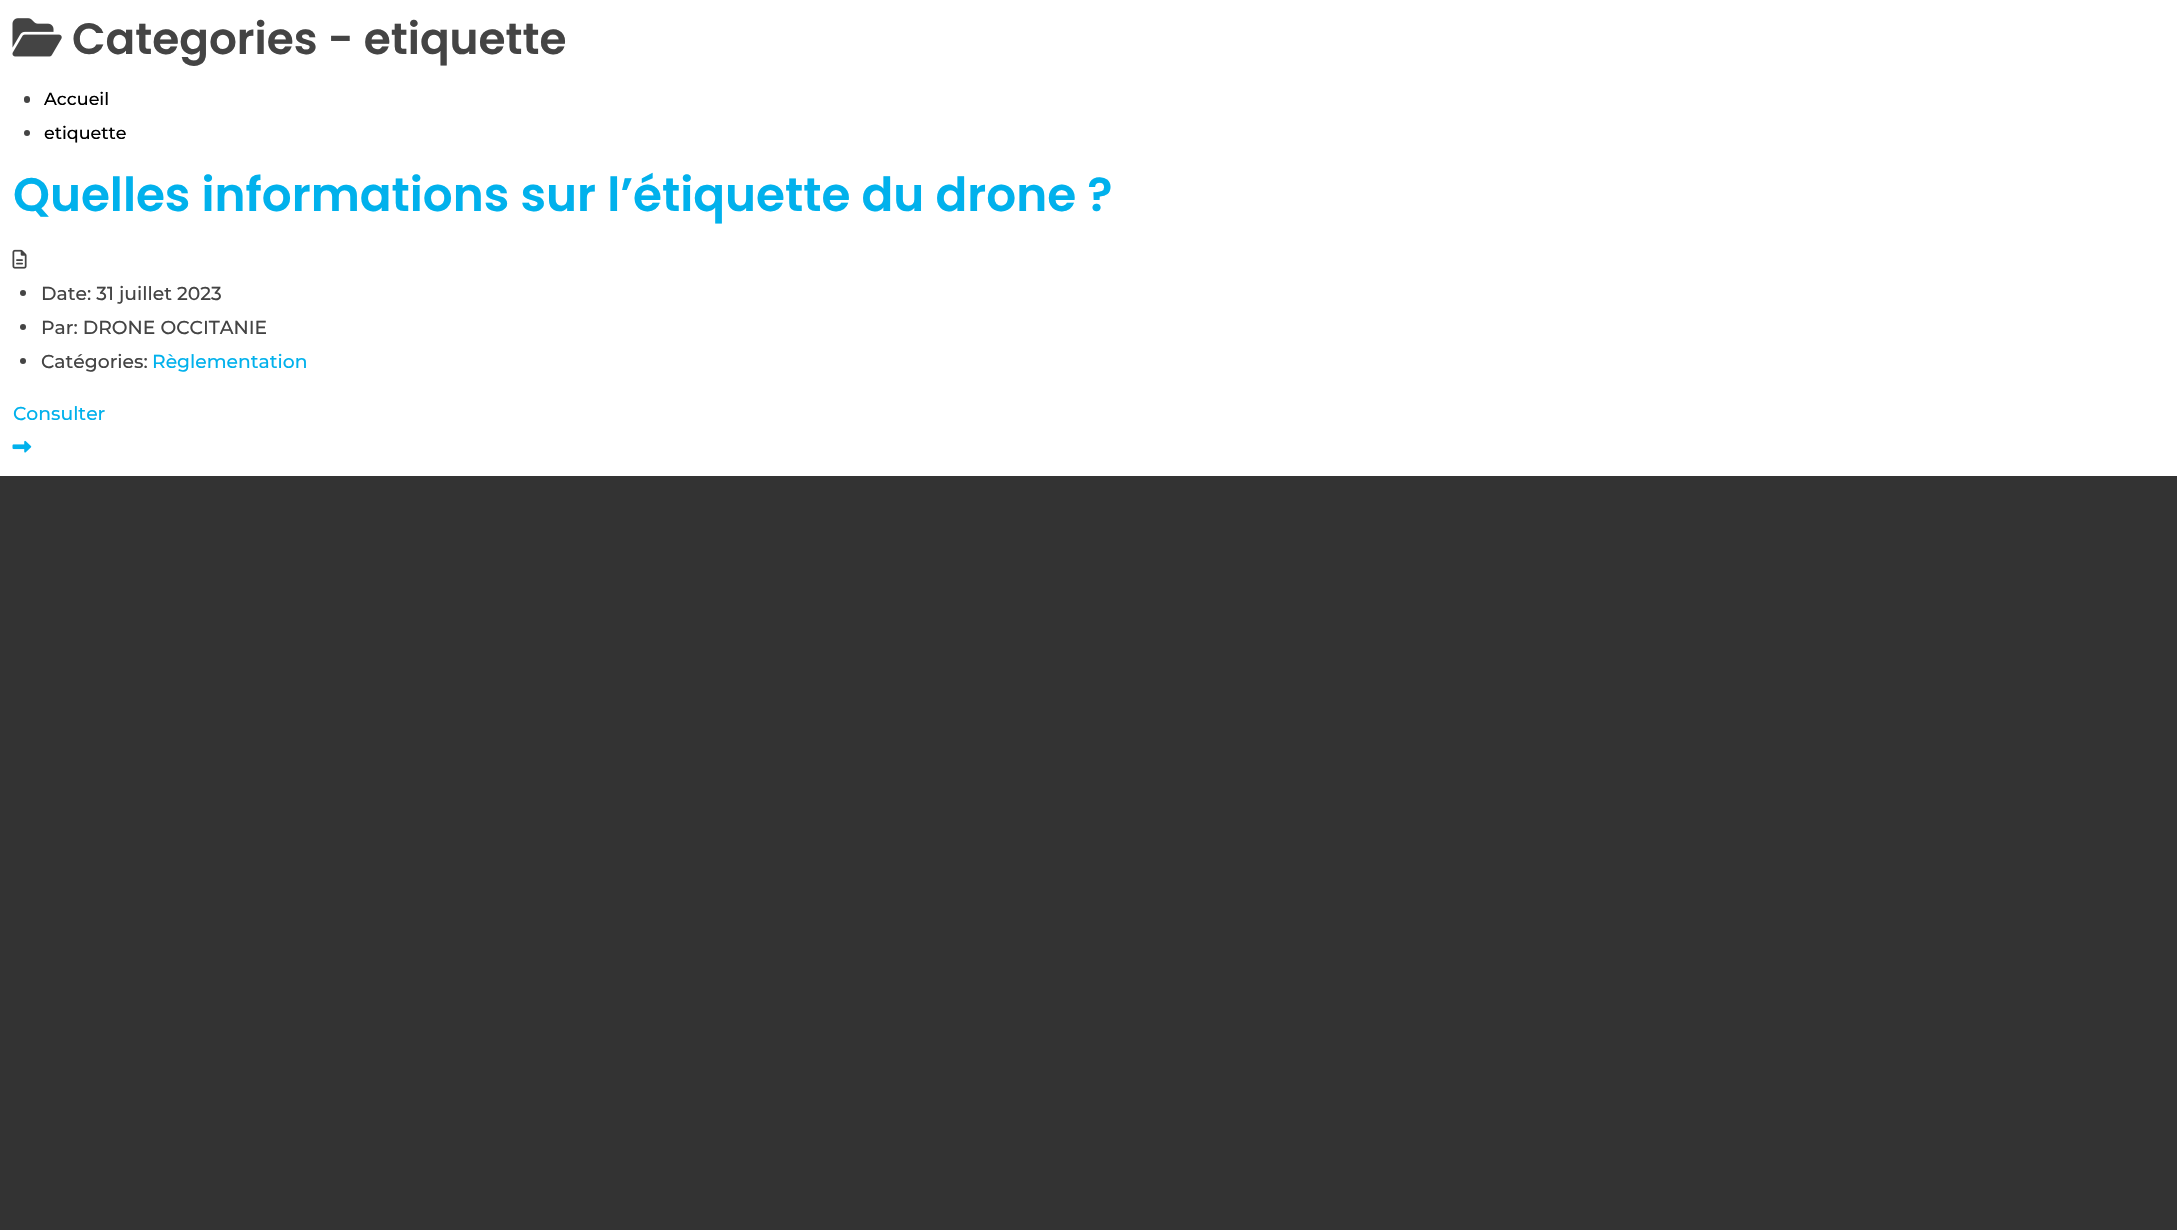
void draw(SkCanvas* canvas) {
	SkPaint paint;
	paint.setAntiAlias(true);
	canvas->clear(0xffffffff);
	canvas->drawImageRect(SkImages::DeferredFromEncodedData(SkData::MakeFromFileName("img1.png")), SkRect::MakeXYWH(12, 18, 50, 39), SkSamplingOptions());
	SkFont f1(fontMgr->matchFamilyStyle("Poppins", SkFontStyle(600, SkFontStyle::kNormal_Width, SkFontStyle::kUpright_Slant)), 43.75);
	f1.setSubpixel(true);
	paint.setColor(0xff444444);
	canvas->drawString("Categories - etiquette", 72, 54, f1, paint);
	canvas->drawRoundRect(SkRect::MakeXYWH(24, 96, 6, 7), 3, 3, paint);
	SkFont f2(fontMgr->matchFamilyStyle("Montserrat", SkFontStyle(500, SkFontStyle::kNormal_Width, SkFontStyle::kUpright_Slant)), 17.5);
	f2.setSubpixel(true);
	paint.setColor(0xff000000);
	canvas->drawString("Accueil", 44, 105, f2, paint);
	paint.setColor(0xff444444);
	canvas->drawCircle(27, 133, 3, paint);
	paint.setColor(0xff000000);
	canvas->drawString("etiquette", 44, 139, f2, paint);
	SkFont f3(fontMgr->matchFamilyStyle("Poppins", SkFontStyle(600, SkFontStyle::kNormal_Width, SkFontStyle::kUpright_Slant)), 46.9);
	f3.setSubpixel(true);
	paint.setColor(0xff01b1ec);
	canvas->drawString("Quelles informations sur l’étiquette du drone ?", 13, 211, f3, paint);
	canvas->drawImageRect(SkImages::DeferredFromEncodedData(SkData::MakeFromFileName("img2.png")), SkRect::MakeXYWH(12, 249, 15, 20), SkSamplingOptions());
	paint.setColor(0xff444444);
	canvas->drawCircle(23, 293, 3, paint);
	SkFont f4(fontMgr->matchFamilyStyle("Montserrat", SkFontStyle(500, SkFontStyle::kNormal_Width, SkFontStyle::kUpright_Slant)), 18.75);
	f4.setSubpixel(true);
	canvas->drawString("Date: 31 juillet 2023", 41, 300, f4, paint);
	canvas->drawCircle(23, 327, 3, paint);
	canvas->drawString("Par: DRONE OCCITANIE", 41, 334, f4, paint);
	canvas->drawCircle(23, 361, 3, paint);
	canvas->drawString("Catégories:", 41, 368, f4, paint);
	paint.setColor(0xff01b1ec);
	canvas->drawString("Règlementation", 152, 368, f4, paint);
	canvas->drawString("Consulter", 13, 420, f4, paint);
	canvas->drawImageRect(SkImages::DeferredFromEncodedData(SkData::MakeFromFileName("img3.png")), SkRect::MakeXYWH(12, 440, 20, 13), SkSamplingOptions());
	paint.setColor(0xff333333);
	canvas->drawRect(SkRect::MakeXYWH(0, 476, 2177, 754), paint);
}
